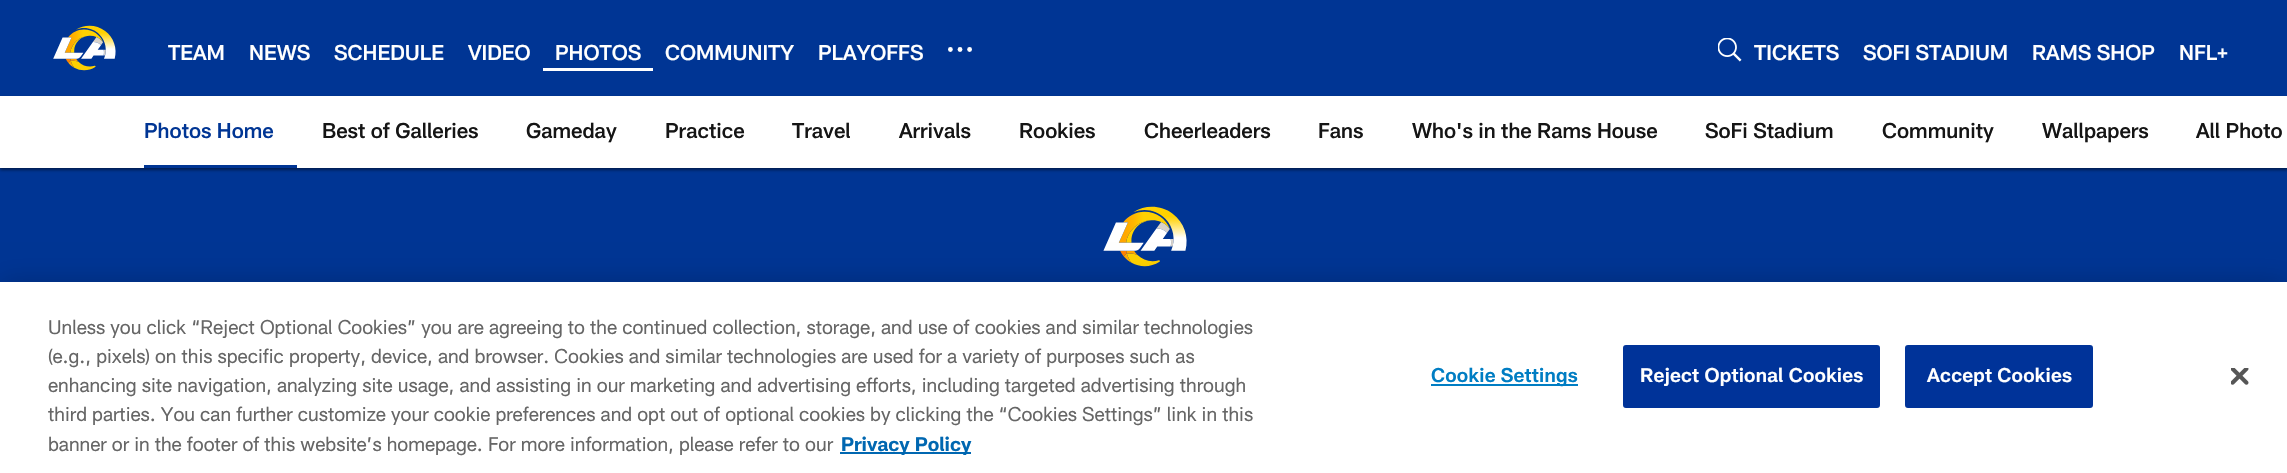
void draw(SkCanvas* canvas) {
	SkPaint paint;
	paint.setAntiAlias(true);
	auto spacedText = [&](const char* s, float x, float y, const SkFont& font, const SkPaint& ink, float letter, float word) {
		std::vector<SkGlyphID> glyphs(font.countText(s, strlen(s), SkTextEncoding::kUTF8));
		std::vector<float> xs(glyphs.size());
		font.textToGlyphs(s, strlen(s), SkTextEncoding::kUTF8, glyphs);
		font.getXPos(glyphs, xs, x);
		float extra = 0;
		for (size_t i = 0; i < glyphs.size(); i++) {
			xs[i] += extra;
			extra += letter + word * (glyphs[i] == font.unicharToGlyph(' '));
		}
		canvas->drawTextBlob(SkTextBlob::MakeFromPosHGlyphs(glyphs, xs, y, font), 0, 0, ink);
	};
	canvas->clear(0xff003594);
	canvas->drawImageRect(SkImages::DeferredFromEncodedData(SkData::MakeFromFileName("img1.png")), SkRect::MakeXYWH(53, 25, 63, 46), SkSamplingOptions());
	SkFont f1(fontMgr->matchFamilyStyle("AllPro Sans", SkFontStyle(500, SkFontStyle::kNormal_Width, SkFontStyle::kUpright_Slant)), 21);
	f1.setSubpixel(true);
	paint.setColor(0xffffffff);
	canvas->drawString("TEAM", 168, 60, f1, paint);
	canvas->drawString("NEWS", 249, 60, f1, paint);
	canvas->drawString("SCHEDULE", 334, 60, f1, paint);
	canvas->drawString("VIDEO", 468, 60, f1, paint);
	canvas->drawRect(SkRect::MakeXYWH(543, 68, 110, 3), paint);
	canvas->drawString("PHOTOS", 555, 60, f1, paint);
	canvas->drawString("COMMUNITY", 665, 60, f1, paint);
	canvas->drawString("PLAYOFFS", 818, 60, f1, paint);
	canvas->drawCircle(969.6, 49.5, 2.4, paint);
	canvas->drawCircle(960, 49.5, 2.4, paint);
	canvas->drawCircle(950.4, 49.5, 2.4, paint);
	canvas->drawImageRect(SkImages::DeferredFromEncodedData(SkData::MakeFromFileName("img2.png")), SkRect::MakeXYWH(1718, 38, 24, 24), SkSamplingOptions());
	canvas->drawString("TICKETS", 1754, 60, f1, paint);
	canvas->drawString("SOFI STADIUM", 1863, 60, f1, paint);
	canvas->drawString("RAMS SHOP", 2032, 60, f1, paint);
	canvas->drawString("NFL+", 2179, 60, f1, paint);
	paint.setColor(0x78000000);
	paint.setMaskFilter(SkMaskFilter::MakeBlur(kNormal_SkBlurStyle, 1.5));
	canvas->drawRect(SkRect::MakeXYWH(0, 98, 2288, 72), paint);
	paint.setMaskFilter(nullptr);
	paint.setColor(0xffffffff);
	canvas->drawRect(SkRect::MakeXYWH(0, 96, 2287, 72), paint);
	paint.setColor(0xff003594);
	canvas->drawRect(SkRect::MakeXYWH(144, 165, 153, 3), paint);
	canvas->drawString("Photos Home", 144, 138, f1, paint);
	paint.setColor(0xff151515);
	canvas->drawString("Best of Galleries", 322, 138, f1, paint);
	canvas->drawString("Gameday", 526, 138, f1, paint);
	canvas->drawString("Practice", 665, 138, f1, paint);
	canvas->drawString("Travel", 792, 138, f1, paint);
	canvas->drawString("Arrivals", 899, 138, f1, paint);
	canvas->drawString("Rookies", 1019, 138, f1, paint);
	canvas->drawString("Cheerleaders", 1144, 138, f1, paint);
	canvas->drawString("Fans", 1318, 138, f1, paint);
	canvas->drawString("Who's in the Rams House", 1412, 138, f1, paint);
	canvas->drawString("SoFi Stadium", 1705, 138, f1, paint);
	canvas->drawString("Community", 1882, 138, f1, paint);
	canvas->drawString("Wallpapers", 2042, 138, f1, paint);
	canvas->drawString("All Photo", 2196, 138, f1, paint);
	canvas->drawImageRect(SkImages::DeferredFromEncodedData(SkData::MakeFromFileName("img3.png")), SkRect::MakeXYWH(1103, 206, 84, 61), SkSamplingOptions());
	paint.setColor(0x33000000);
	paint.setMaskFilter(SkMaskFilter::MakeBlur(kNormal_SkBlurStyle, 13.5));
	canvas->drawRect(SkRect::MakeXYWH(0, 282, 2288, 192), paint);
	paint.setMaskFilter(nullptr);
	paint.setColor(0xffffffff);
	canvas->drawRect(SkRect::MakeXYWH(0, 282, 2287, 191), paint);
	SkFont f2(fontMgr->matchFamilyStyle("AllPro Sans", SkFontStyle::Normal()), 19.5);
	f2.setSubpixel(true);
	paint.setColor(0xff666666);
	canvas->drawString("Unless you click “Reject Optional Cookies” you are agreeing to the continued collection, storage, and use of cookies and similar technologies", 48, 334, f2, paint);
	canvas->drawString("(e.g., pixels) on this specific property, device, and browser. Cookies and similar technologies are used for a variety of purposes such as", 48, 363, f2, paint);
	canvas->drawString("enhancing site navigation, analyzing site usage, and assisting in our marketing and advertising efforts, including targeted advertising through", 48, 392, f2, paint);
	canvas->drawString("third parties. You can further customize your cookie preferences and opt out of optional cookies by clicking the “Cookies Settings” link in this", 48, 421, f2, paint);
	canvas->drawString("banner or in the footer of this website’s homepage. For more information, please refer to our", 48, 451, f2, paint);
	paint.setColor(0xff0067b1);
	canvas->drawRect(SkRect::MakeXYWH(840, 452, 131, 2), paint);
	SkFont f3(fontMgr->matchFamilyStyle("AllPro Sans", SkFontStyle::Bold()), 19.5);
	f3.setSubpixel(true);
	canvas->drawString("Privacy Policy", 841, 451, f3, paint);
	paint.setColor(0xff007dc3);
	canvas->drawRect(SkRect::MakeXYWH(1431, 384, 147, 2), paint);
	SkFont f4(fontMgr->matchFamilyStyle("AllPro Sans", SkFontStyle(600, SkFontStyle::kNormal_Width, SkFontStyle::kUpright_Slant)), 19.5);
	f4.setSubpixel(true);
	spacedText("Cookie Settings", 1431, 382, f4, paint, 0.2, 0);
	paint.setColor(0xff003399);
	canvas->drawRoundRect(SkRect::MakeXYWH(1624, 346, 255, 61), 2, 2, paint);
	paint.setStroke(true);
	paint.setStrokeWidth(2);
	canvas->drawRoundRect(SkRect::MakeXYWH(1624, 346, 255, 61), 2, 2, paint);
	paint.setStroke(false);
	paint.setColor(0xffffffff);
	spacedText("Reject Optional Cookies", 1640, 382, f4, paint, 0.2, 0);
	paint.setColor(0xff003399);
	canvas->drawRoundRect(SkRect::MakeXYWH(1906, 346, 186, 61), 2, 2, paint);
	paint.setStroke(true);
	canvas->drawRoundRect(SkRect::MakeXYWH(1906, 346, 186, 61), 2, 2, paint);
	paint.setStroke(false);
	paint.setColor(0xffffffff);
	spacedText("Accept Cookies", 1927, 382, f4, paint, 0.2, 0);
	canvas->drawImageRect(SkImages::DeferredFromEncodedData(SkData::MakeFromFileName("img4.png")), SkRect::MakeXYWH(2231, 368, 18, 17), SkSamplingOptions());
}
